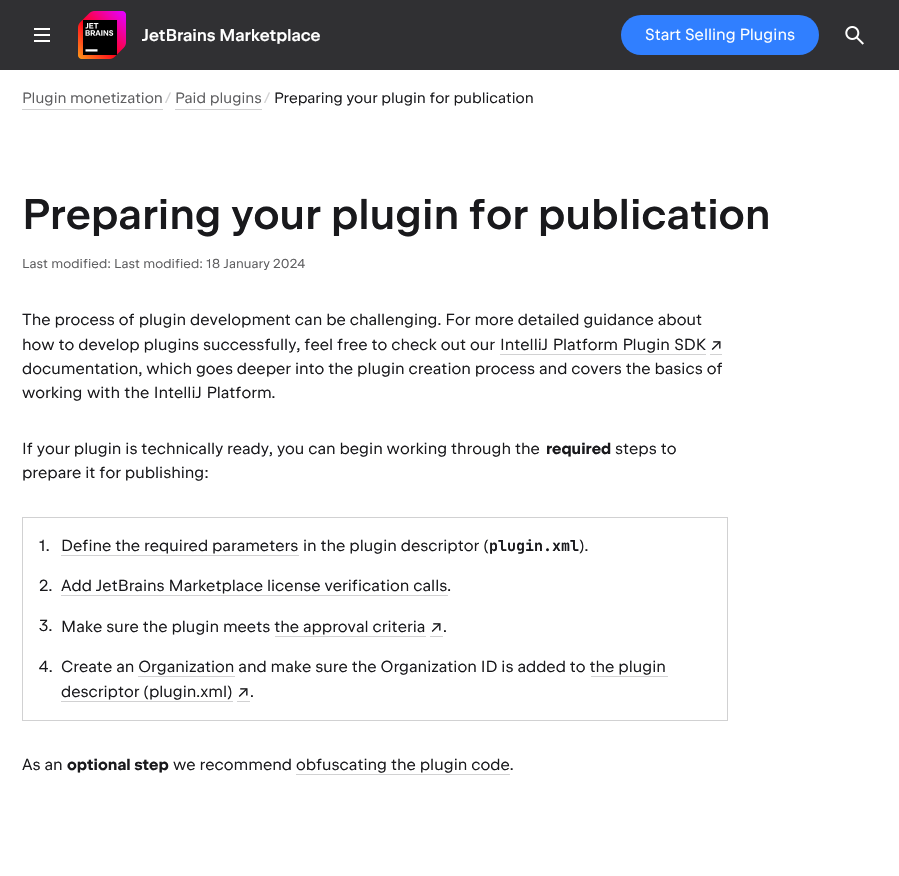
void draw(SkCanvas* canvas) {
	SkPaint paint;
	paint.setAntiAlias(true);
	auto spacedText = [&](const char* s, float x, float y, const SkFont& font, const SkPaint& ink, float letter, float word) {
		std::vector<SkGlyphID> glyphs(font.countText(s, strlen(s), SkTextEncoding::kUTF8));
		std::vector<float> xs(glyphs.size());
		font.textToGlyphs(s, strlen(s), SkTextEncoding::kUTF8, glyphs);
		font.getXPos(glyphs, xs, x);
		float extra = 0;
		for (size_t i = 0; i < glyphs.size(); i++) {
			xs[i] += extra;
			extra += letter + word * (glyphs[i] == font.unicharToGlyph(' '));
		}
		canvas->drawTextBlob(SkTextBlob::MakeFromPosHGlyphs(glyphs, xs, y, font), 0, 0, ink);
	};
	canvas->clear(0xffffffff);
	paint.setColor(0xff303033);
	canvas->drawRect(SkRect::MakeXYWH(0, 0, 899, 70), paint);
	canvas->drawImageRect(SkImages::DeferredFromEncodedData(SkData::MakeFromFileName("img1.png")), SkRect::MakeXYWH(34, 28, 16, 14), SkSamplingOptions());
	canvas->drawImageRect(SkImages::DeferredFromEncodedData(SkData::MakeFromFileName("img2.png")), SkRect::MakeXYWH(78, 11, 48, 48), SkSamplingOptions());
	SkFont f1(fontMgr->matchFamilyStyle("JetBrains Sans", SkFontStyle(500, SkFontStyle::kNormal_Width, SkFontStyle::kUpright_Slant)), 17);
	f1.setSubpixel(true);
	paint.setColor(0xffffffff);
	spacedText("JetBrains Marketplace", 142, 41, f1, paint, -0.1, 0);
	paint.setColor(0xff307fff);
	canvas->drawRoundRect(SkRect::MakeXYWH(621, 15, 198, 40), 20, 20, paint);
	SkFont f2(fontMgr->matchFamilyStyle("JetBrains Sans", SkFontStyle::Normal()), 16);
	f2.setSubpixel(true);
	paint.setColor(0xffffffff);
	canvas->drawString("Start Selling Plugins", 645, 40, f2, paint);
	canvas->drawImageRect(SkImages::DeferredFromEncodedData(SkData::MakeFromFileName("img3.png")), SkRect::MakeXYWH(845, 26, 19, 19), SkSamplingOptions());
	SkFont f3(fontMgr->matchFamilyStyle("JetBrains Sans", SkFontStyle::Normal()), 15);
	f3.setSubpixel(true);
	paint.setColor(0xff5e5e60);
	canvas->drawString("Plugin monetization", 22, 103, f3, paint);
	paint.setColor(0xffd1d1d2);
	canvas->drawRect(SkRect::MakeXYWH(22, 109, 141, 1), paint);
	canvas->drawString("/", 165, 103, f3, paint);
	paint.setColor(0xff5e5e60);
	canvas->drawString("Paid plugins", 175, 103, f3, paint);
	paint.setColor(0xffd1d1d2);
	canvas->drawRect(SkRect::MakeXYWH(175, 109, 87, 1), paint);
	canvas->drawString("/", 264, 103, f3, paint);
	paint.setColor(0xff19191c);
	canvas->drawString("Preparing your plugin for publication", 274, 103, f3, paint);
	SkFont f4(fontMgr->matchFamilyStyle("JetBrains Sans", SkFontStyle(500, SkFontStyle::kNormal_Width, SkFontStyle::kUpright_Slant)), 43);
	f4.setSubpixel(true);
	spacedText("Preparing your plugin for publication", 22, 229, f4, paint, -0.05, 0);
	SkFont f5(fontMgr->matchFamilyStyle("JetBrains Sans", SkFontStyle::Normal()), 13);
	f5.setSubpixel(true);
	paint.setColor(0xff5e5e60);
	spacedText("Last modified:", 22, 268, f5, paint, 0.05, 0);
	spacedText("Last modified: 18 January 2024", 114, 268, f5, paint, 0.05, 0);
	paint.setColor(0xff19191c);
	canvas->drawString("The process of plugin development can be challenging. For more detailed guidance about", 22, 325, f2, paint);
	canvas->drawString("how to develop plugins successfully, feel free to check out our", 22, 350, f2, paint);
	spacedText("IntelliJ Platform Plugin SDK", 500, 350, f2, paint, 0, 0.5);
	paint.setColor(0xffd1d1d2);
	canvas->drawRect(SkRect::MakeXYWH(500, 354, 206, 1), paint);
	SkFont f6(fontMgr->matchFamilyStyle("Inter", SkFontStyle::Normal()), 16);
	f6.setSubpixel(true);
	paint.setColor(0xff19191c);
	canvas->drawString("↗", 710, 350, f6, paint);
	paint.setColor(0xffd1d1d2);
	canvas->drawRect(SkRect::MakeXYWH(710, 354, 12, 1), paint);
	paint.setColor(0xff19191c);
	canvas->drawString("documentation, which goes deeper into the plugin creation process and covers the basics of", 22, 374, f2, paint);
	spacedText("working with the IntelliJ Platform.", 22, 398, f2, paint, 0, 0.5);
	canvas->drawString("If your plugin is technically ready, you can begin working through the", 22, 454, f2, paint);
	SkFont f7(fontMgr->matchFamilyStyle("JetBrains Sans", SkFontStyle(600, SkFontStyle::kNormal_Width, SkFontStyle::kUpright_Slant)), 16);
	f7.setSubpixel(true);
	canvas->drawString("required", 546, 454, f7, paint);
	canvas->drawString("steps to", 615, 454, f2, paint);
	canvas->drawString("prepare it for publishing:", 22, 478, f2, paint);
	paint.setStroke(true);
	paint.setStrokeWidth(1);
	paint.setColor(0xffd1d1d2);
	canvas->drawRect(SkRect::MakeXYWH(22.5, 517.5, 705, 203), paint);
	paint.setStroke(false);
	paint.setColor(0xff19191c);
	canvas->drawString("1.", 39, 551, f2, paint);
	canvas->drawString("Define the required parameters", 61, 551, f2, paint);
	paint.setColor(0xffd1d1d2);
	canvas->drawRect(SkRect::MakeXYWH(61, 555, 238, 1), paint);
	paint.setColor(0xff19191c);
	canvas->drawString("in the plugin descriptor (", 303, 551, f2, paint);
	SkFont f8(fontMgr->matchFamilyStyle("JetBrains Mono", SkFontStyle::Bold()), 15);
	f8.setSubpixel(true);
	canvas->drawString("plugin.xml", 489, 551, f8, paint);
	canvas->drawString(").", 579, 551, f2, paint);
	canvas->drawString("2.", 39, 591, f2, paint);
	canvas->drawString("Add JetBrains Marketplace license verification calls.", 61, 591, f2, paint);
	paint.setColor(0xffd1d1d2);
	canvas->drawRect(SkRect::MakeXYWH(61, 595, 387, 1), paint);
	paint.setColor(0xff19191c);
	canvas->drawString("3.", 39, 631, f2, paint);
	canvas->drawString("Make sure the plugin meets the approval criteria", 61, 632, f2, paint);
	canvas->drawString("↗", 430, 632, f6, paint);
	paint.setColor(0xffd1d1d2);
	canvas->drawRect(SkRect::MakeXYWH(275, 636, 151, 1), paint);
	canvas->drawRect(SkRect::MakeXYWH(430, 636, 13, 1), paint);
	paint.setColor(0xff19191c);
	canvas->drawString(".", 443, 632, f2, paint);
	canvas->drawString("4.", 39, 672, f2, paint);
	canvas->drawString("Create an Organization and make sure the Organization ID is added to the plugin", 61, 672, f2, paint);
	paint.setColor(0xffd1d1d2);
	canvas->drawRect(SkRect::MakeXYWH(138, 676, 97, 1), paint);
	paint.setColor(0xff19191c);
	canvas->drawString("descriptor (plugin.xml)", 61, 697, f2, paint);
	paint.setColor(0xffd1d1d2);
	canvas->drawRect(SkRect::MakeXYWH(61, 701, 172, 1), paint);
	paint.setColor(0xff19191c);
	canvas->drawString("↗", 237, 697, f6, paint);
	paint.setColor(0xffd1d1d2);
	canvas->drawRect(SkRect::MakeXYWH(591, 676, 77, 1), paint);
	canvas->drawRect(SkRect::MakeXYWH(237, 701, 13, 1), paint);
	paint.setColor(0xff19191c);
	canvas->drawString(".", 250, 697, f2, paint);
	canvas->drawString("As an", 22, 770, f2, paint);
	canvas->drawString("optional step", 67, 770, f7, paint);
	canvas->drawString("we recommend obfuscating the plugin code.", 173, 770, f2, paint);
	paint.setColor(0xffd1d1d2);
	canvas->drawRect(SkRect::MakeXYWH(296, 774, 214, 1), paint);
}
